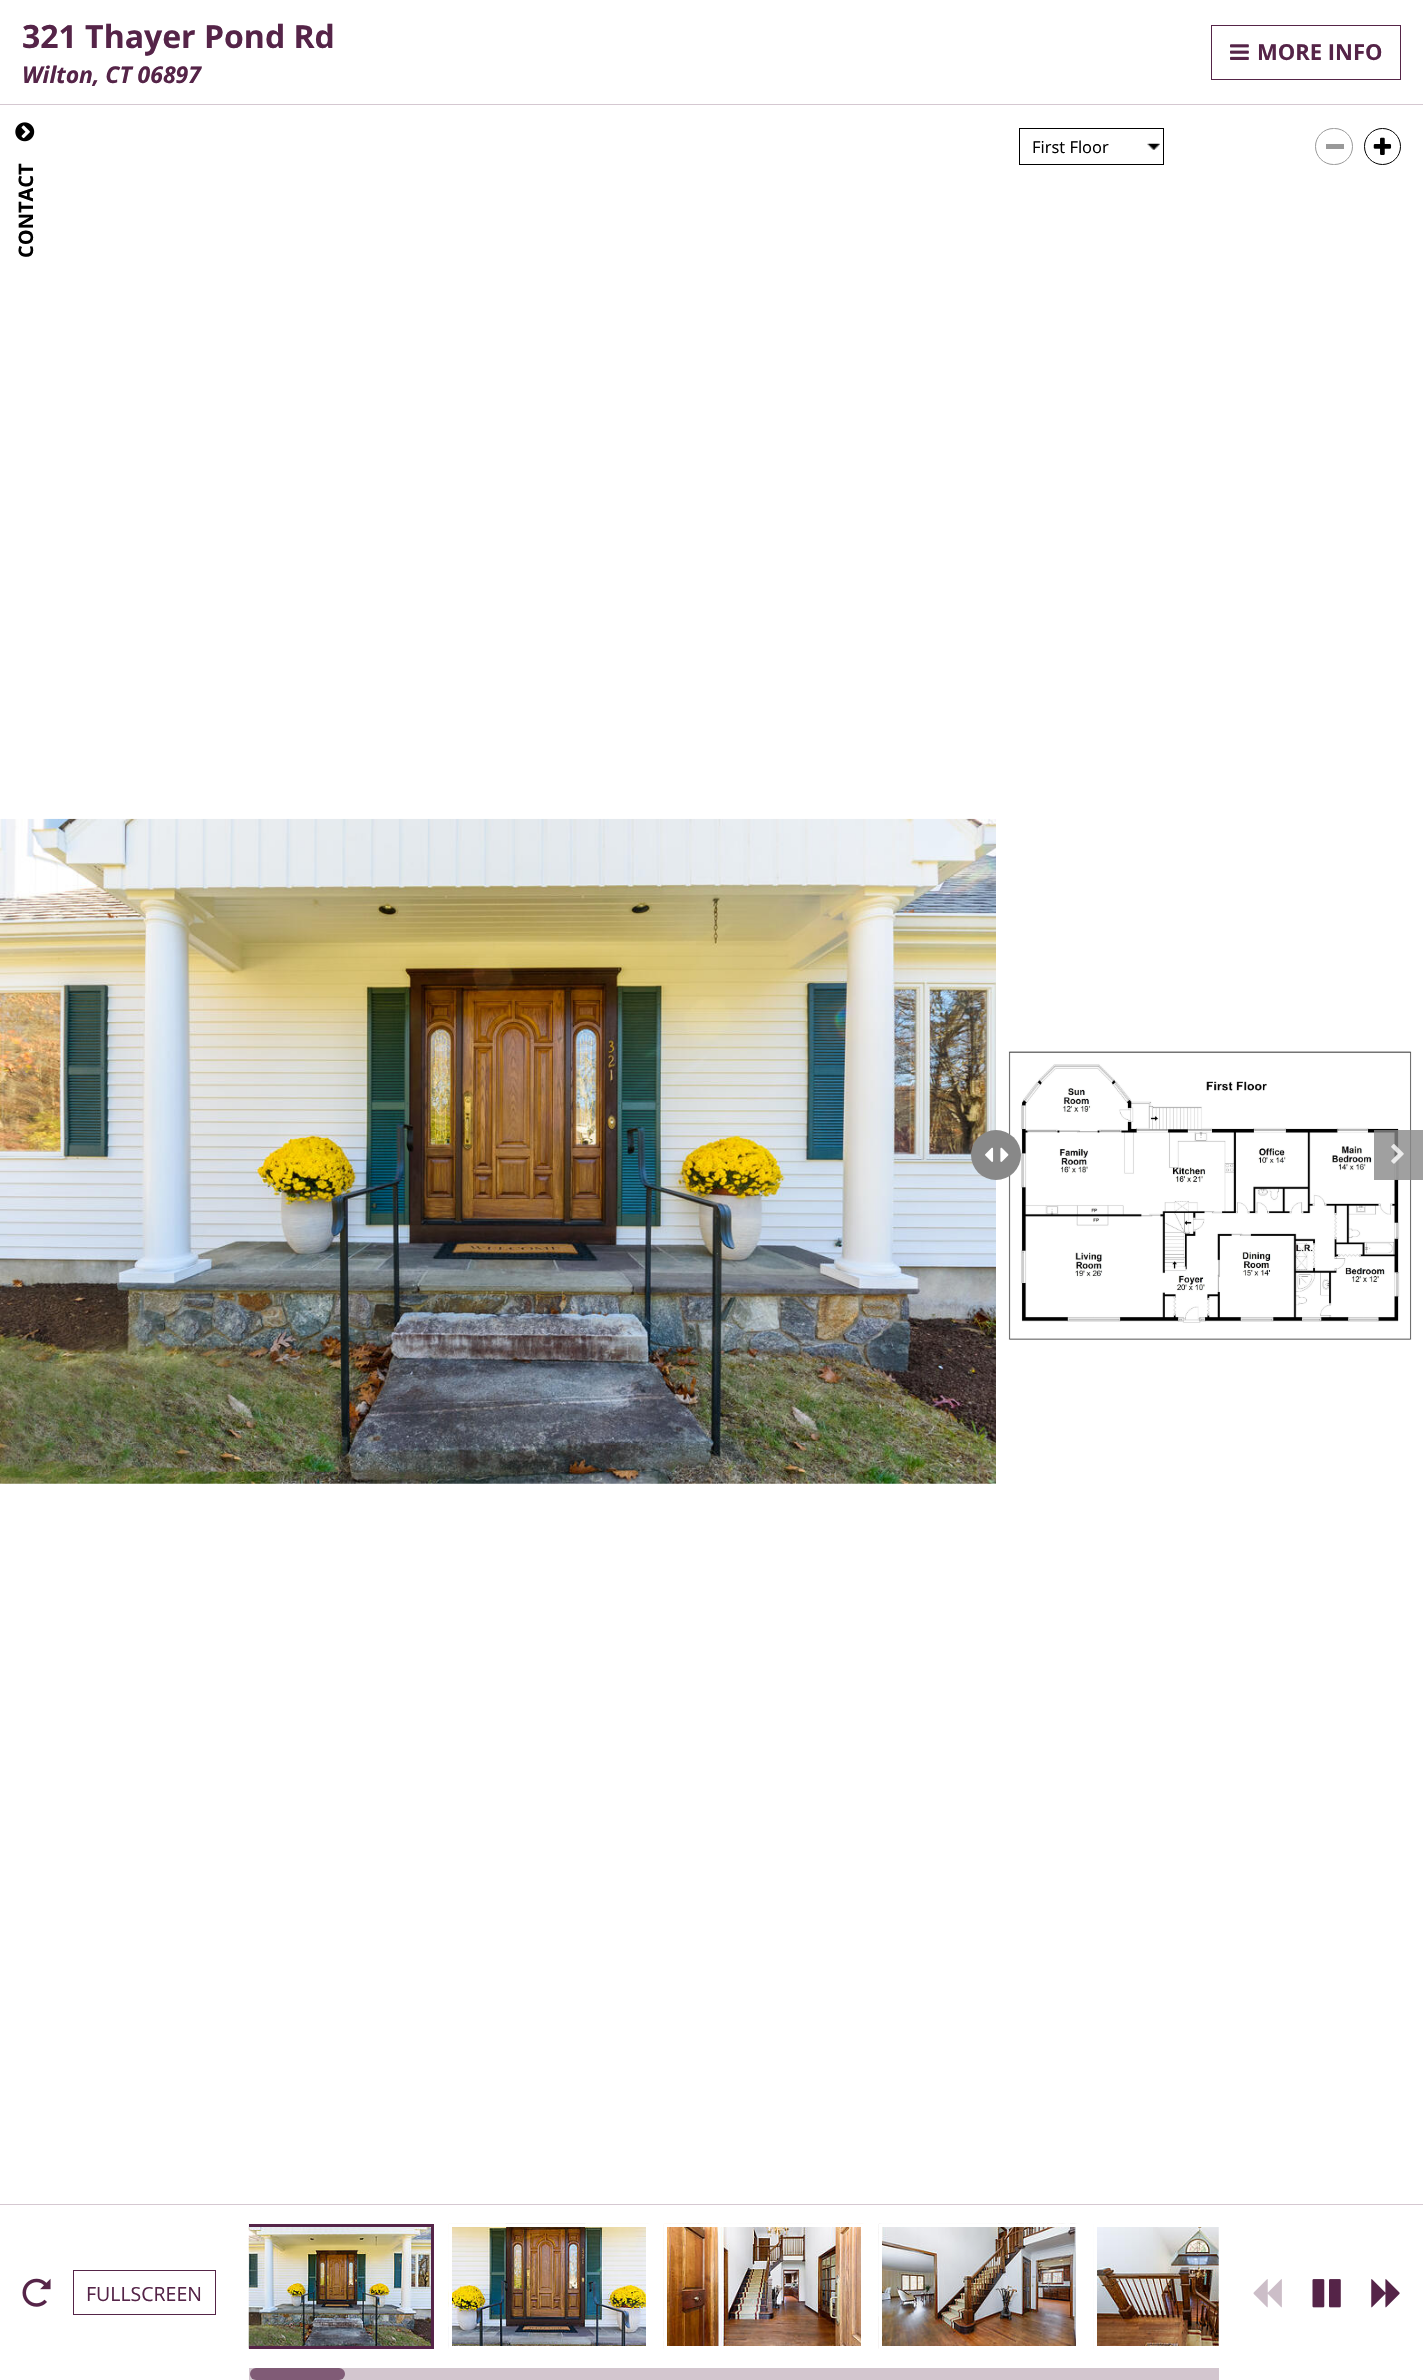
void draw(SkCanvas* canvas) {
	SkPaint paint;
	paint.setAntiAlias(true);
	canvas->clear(0xffffffff);
	paint.setColor(0xffd5c8d1);
	canvas->drawRect(SkRect::MakeXYWH(0, 104, 1423, 1), paint);
	SkFont f1(fontMgr->matchFamilyStyle("Open Sans", SkFontStyle::Bold()), 32);
	f1.setSubpixel(true);
	paint.setColor(0xff552448);
	canvas->drawString("321 Thayer Pond Rd", 22, 48, f1, paint);
	SkFont f2(fontMgr->matchFamilyStyle("Open Sans", SkFontStyle::BoldItalic()), 23);
	f2.setSubpixel(true);
	canvas->drawString("Wilton, CT 06897", 22, 83, f2, paint);
	paint.setStroke(true);
	paint.setStrokeWidth(1);
	canvas->drawRect(SkRect::MakeXYWH(1211.5, 25.5, 189, 54), paint);
	canvas->drawImageRect(SkImages::DeferredFromEncodedData(SkData::MakeFromFileName("img1.png")), SkRect::MakeXYWH(1230, 44, 19, 16), SkSamplingOptions());
	SkFont f3(fontMgr->matchFamilyStyle("Open Sans", SkFontStyle::Bold()), 22);
	f3.setSubpixel(true);
	paint.setStroke(false);
	canvas->drawString("MORE INFO", 1257, 60, f3, paint);
	canvas->drawImageRect(SkImages::DeferredFromEncodedData(SkData::MakeFromFileName("img2.png")), SkRect::MakeXYWH(1147, 143, 13, 7), SkSamplingOptions());
	paint.setStroke(true);
	paint.setColor(0xff000000);
	canvas->drawRect(SkRect::MakeXYWH(1019.5, 128.5, 144, 36), paint);
	SkFont f4(fontMgr->matchFamilyStyle("Open Sans", SkFontStyle::Normal()), 16.5);
	f4.setSubpixel(true);
	paint.setStroke(false);
	canvas->drawString("First Floor", 1032, 153, f4, paint);
	paint.setStroke(true);
	paint.setColor(0xff999999);
	canvas->drawRoundRect(SkRect::MakeXYWH(1315.5, 128.5, 37, 36), 18, 18, paint);
	paint.setStroke(false);
	canvas->drawRect(SkRect::MakeXYWH(1326, 144, 18, 5), paint);
	paint.setStroke(true);
	paint.setColor(0xff000000);
	canvas->drawCircle(1382.5, 146.5, 18, paint);
	canvas->drawImageRect(SkImages::DeferredFromEncodedData(SkData::MakeFromFileName("img3.png")), SkRect::MakeXYWH(1373, 137, 19, 18), SkSamplingOptions());
	canvas->drawImageRect(SkImages::DeferredFromEncodedData(SkData::MakeFromFileName("img4.png")), SkRect::MakeXYWH(1008, 1051, 404, 289), SkSamplingOptions());
	canvas->drawImageRect(SkImages::DeferredFromEncodedData(SkData::MakeFromFileName("img5.png")), SkRect::MakeXYWH(0, 818, 996, 666), SkSamplingOptions());
	paint.setStroke(false);
	paint.setColor(0xff888888);
	canvas->drawCircle(996, 1155, 25, paint);
	canvas->drawImageRect(SkImages::DeferredFromEncodedData(SkData::MakeFromFileName("img6.png")), SkRect::MakeXYWH(985, 1147, 9, 15), SkSamplingOptions());
	canvas->drawImageRect(SkImages::DeferredFromEncodedData(SkData::MakeFromFileName("img7.png")), SkRect::MakeXYWH(1000, 1147, 9, 15), SkSamplingOptions());
	canvas->drawImageRect(SkImages::DeferredFromEncodedData(SkData::MakeFromFileName("img8.png")), SkRect::MakeXYWH(15, 122, 20, 20), SkSamplingOptions());
	SkFont f5(fontMgr->matchFamilyStyle("Open Sans", SkFontStyle::Bold()), 20);
	f5.setSubpixel(true);
	paint.setColor(0xff000000);
	canvas->save();
	canvas->rotate(-90, 33, 258);
	canvas->drawString("CONTACT", 33, 258, f5, paint);
	canvas->restore();
	paint.setColor(0xcc888888);
	canvas->drawRect(SkRect::MakeXYWH(1374, 1130, 49, 50), paint);
	canvas->drawImageRect(SkImages::DeferredFromEncodedData(SkData::MakeFromFileName("img9.png")), SkRect::MakeXYWH(1391, 1144, 13, 20), SkSamplingOptions());
	paint.setColor(0xffd5c8d1);
	canvas->drawRect(SkRect::MakeXYWH(0, 2204, 1423, 1), paint);
	canvas->drawImageRect(SkImages::DeferredFromEncodedData(SkData::MakeFromFileName("img10.png")), SkRect::MakeXYWH(22, 2278, 29, 29), SkSamplingOptions());
	paint.setStroke(true);
	paint.setColor(0xff552448);
	canvas->drawRect(SkRect::MakeXYWH(73.5, 2270.5, 142, 44), paint);
	SkFont f6(fontMgr->matchFamilyStyle("Open Sans", SkFontStyle::Normal()), 19.5);
	f6.setSubpixel(true);
	paint.setStroke(false);
	canvas->drawString("FULLSCREEN", 86, 2301, f6, paint);
	canvas->drawImageRect(SkImages::DeferredFromEncodedData(SkData::MakeFromFileName("img11.png")), SkRect::MakeXYWH(248, 2223, 186, 126), SkSamplingOptions());
	canvas->save();
	canvas->clipRect(SkRect::MakeXYWH(249, 2224, 185, 125));
	paint.setStroke(true);
	paint.setStrokeWidth(3);
	canvas->drawRect(SkRect::MakeXYWH(235.5, 2225.5, 197, 122), paint);
	canvas->restore();
	canvas->drawImageRect(SkImages::DeferredFromEncodedData(SkData::MakeFromFileName("img12.png")), SkRect::MakeXYWH(448, 2223, 201, 126), SkSamplingOptions());
	paint.setColor(0xffffffff);
	canvas->drawRect(SkRect::MakeXYWH(450.5, 2225.5, 197, 122), paint);
	canvas->drawImageRect(SkImages::DeferredFromEncodedData(SkData::MakeFromFileName("img13.png")), SkRect::MakeXYWH(663, 2223, 201, 126), SkSamplingOptions());
	canvas->drawRect(SkRect::MakeXYWH(665.5, 2225.5, 197, 122), paint);
	canvas->drawImageRect(SkImages::DeferredFromEncodedData(SkData::MakeFromFileName("img14.png")), SkRect::MakeXYWH(878, 2223, 201, 126), SkSamplingOptions());
	canvas->drawRect(SkRect::MakeXYWH(880.5, 2225.5, 197, 122), paint);
	canvas->drawImageRect(SkImages::DeferredFromEncodedData(SkData::MakeFromFileName("img15.png")), SkRect::MakeXYWH(1093, 2224, 126, 125), SkSamplingOptions());
	canvas->drawImageRect(SkImages::DeferredFromEncodedData(SkData::MakeFromFileName("img16.png")), SkRect::MakeXYWH(1253, 2279, 29, 29), SkSamplingOptions());
	canvas->save();
	canvas->clipRect(SkRect::MakeXYWH(1094, 2224, 125, 125));
	canvas->drawRect(SkRect::MakeXYWH(1095.5, 2225.5, 197, 122), paint);
	canvas->restore();
	paint.setStroke(false);
	paint.setColor(0xffd3c6cf);
	canvas->drawRect(SkRect::MakeXYWH(249, 2368, 970, 12), paint);
	paint.setColor(0xff805b76);
	canvas->drawRoundRect(SkRect::MakeXYWH(250, 2368, 95, 12), 6, 6, paint);
	canvas->drawImageRect(SkImages::DeferredFromEncodedData(SkData::MakeFromFileName("img17.png")), SkRect::MakeXYWH(1312, 2279, 29, 29), SkSamplingOptions());
	canvas->drawImageRect(SkImages::DeferredFromEncodedData(SkData::MakeFromFileName("img18.png")), SkRect::MakeXYWH(1371, 2279, 29, 29), SkSamplingOptions());
}
